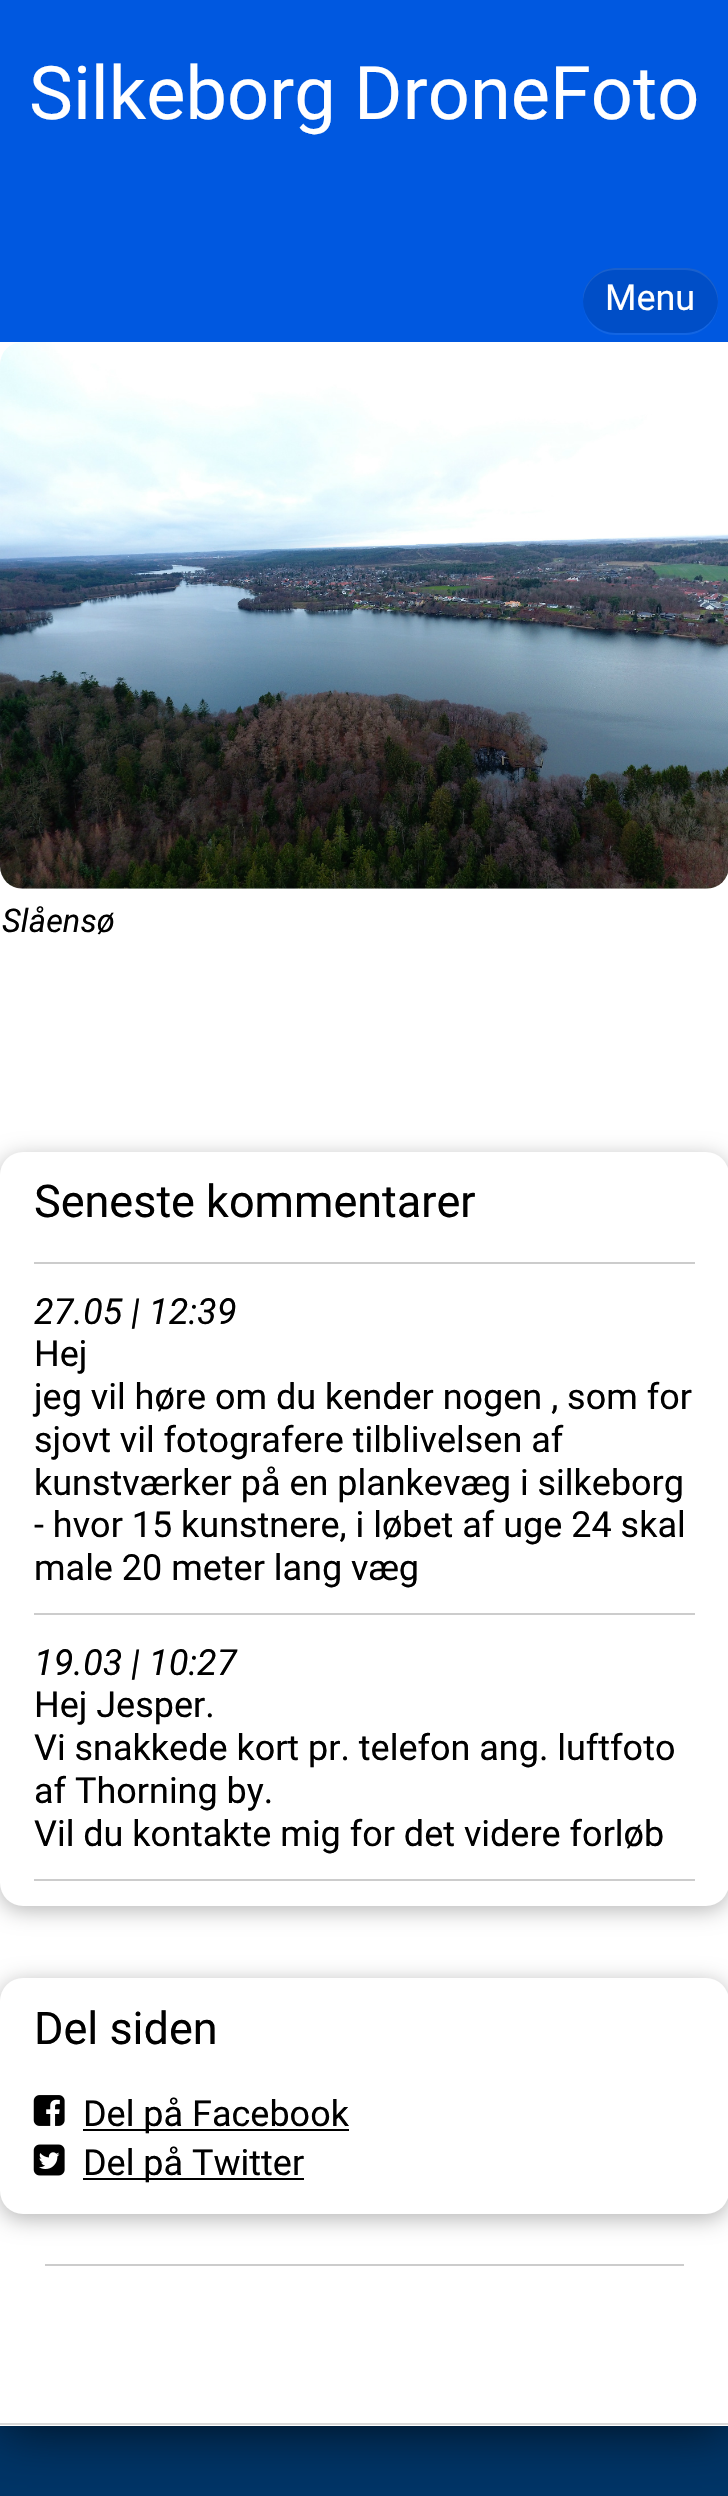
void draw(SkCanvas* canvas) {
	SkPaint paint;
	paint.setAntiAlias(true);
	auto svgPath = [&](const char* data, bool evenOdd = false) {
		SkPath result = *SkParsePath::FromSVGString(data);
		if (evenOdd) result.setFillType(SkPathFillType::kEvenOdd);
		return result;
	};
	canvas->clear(0xff003466);
	paint.setColor(0xcc000000);
	paint.setMaskFilter(SkMaskFilter::MakeBlur(kNormal_SkBlurStyle, 27));
	canvas->drawRect(SkRect::MakeXYWH(0, 0, 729, 2426), paint);
	paint.setMaskFilter(nullptr);
	paint.setColor(0xffffffff);
	canvas->drawRect(SkRect::MakeXYWH(0, 342, 728, 2084), paint);
	paint.setColor(0xffd9d9d9);
	canvas->drawRect(SkRect::MakeXYWH(0, 2423, 728, 2), paint);
	paint.setColor(0xff0058e0);
	canvas->drawRect(SkRect::MakeXYWH(0, 0, 728, 342), paint);
	SkFont f1(fontMgr->matchFamilyStyle("Roboto", SkFontStyle::Normal()), 74);
	f1.setSubpixel(true);
	paint.setColor(0xffffffff);
	canvas->drawString("Silkeborg DroneFoto", 29, 119, f1, paint);
	paint.setColor(0xff1365e2);
	canvas->drawPath(svgPath("M583 305C585 322 598 335 616 335H686C703 335 718 320 718 302V298V300C718 318 703 333 685 333H615C599 333 585 321 583 305Z"), paint);
	paint.setColor(0xff004ec7);
	canvas->drawRoundRect(SkRect::MakeXYWH(583, 268, 135, 65), 32.5, 32.5, paint);
	paint.setColor(0x1affffff);
	canvas->drawPath(svgPath("M615 270H685C703 270 717 284 718 302V300C718 283 703 268 686 268H616C598 268 583 283 583 300V302C584 284 597 270 615 270Z"), paint);
	SkFont f2(fontMgr->matchFamilyStyle("Roboto", SkFontStyle::Normal()), 36);
	f2.setSubpixel(true);
	paint.setColor(0xffffffff);
	canvas->drawString("Menu", 605, 310, f2, paint);
	canvas->drawImageRect(SkImages::DeferredFromEncodedData(SkData::MakeFromFileName("img1.png")), SkRect::MakeXYWH(0, 342, 728, 547), SkSamplingOptions());
	SkFont f3(fontMgr->matchFamilyStyle("Roboto", SkFontStyle::Italic()), 32.5);
	f3.setSubpixel(true);
	paint.setColor(0xff000000);
	canvas->drawString("Slåensø", 2, 932, f3, paint);
	paint.setColor(0x4a000000);
	paint.setMaskFilter(SkMaskFilter::MakeBlur(kNormal_SkBlurStyle, 11));
	canvas->drawRoundRect(SkRect::MakeXYWH(0, 1157, 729, 753), 23, 23, paint);
	paint.setMaskFilter(nullptr);
	paint.setColor(0xffffffff);
	canvas->drawRoundRect(SkRect::MakeXYWH(0, 1152, 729, 754), 23, 23, paint);
	SkFont f4(fontMgr->matchFamilyStyle("Roboto", SkFontStyle::Normal()), 45);
	f4.setSubpixel(true);
	paint.setColor(0xff000000);
	canvas->drawString("Seneste kommentarer", 34, 1217, f4, paint);
	paint.setColor(0xffcccccc);
	canvas->drawRect(SkRect::MakeXYWH(34, 1262, 661, 2), paint);
	canvas->drawRect(SkRect::MakeXYWH(34, 1613, 661, 2), paint);
	SkFont f5(fontMgr->matchFamilyStyle("Roboto", SkFontStyle::Italic()), 36);
	f5.setSubpixel(true);
	paint.setColor(0xff000000);
	canvas->drawString("27.05 | 12:39", 34, 1324, f5, paint);
	canvas->drawString("Hej", 34, 1366, f2, paint);
	canvas->drawString("jeg vil høre om du kender nogen , som for", 34, 1409, f2, paint);
	canvas->drawString("sjovt vil fotografere tilblivelsen af", 34, 1452, f2, paint);
	canvas->drawString("kunstværker på en plankevæg i silkeborg", 34, 1495, f2, paint);
	canvas->drawString("- hvor 15 kunstnere, i løbet af uge 24 skal", 34, 1537, f2, paint);
	canvas->drawString("male 20 meter lang væg", 34, 1580, f2, paint);
	paint.setColor(0xffcccccc);
	canvas->drawRect(SkRect::MakeXYWH(34, 1879, 661, 2), paint);
	paint.setColor(0xff000000);
	canvas->drawString("19.03 | 10:27", 34, 1675, f5, paint);
	canvas->drawString("Hej Jesper.", 34, 1717, f2, paint);
	canvas->drawString("Vi snakkede kort pr. telefon ang. luftfoto", 34, 1760, f2, paint);
	canvas->drawString("af Thorning by.", 34, 1803, f2, paint);
	canvas->drawString("Vil du kontakte mig for det videre forløb", 34, 1846, f2, paint);
	paint.setColor(0x4a000000);
	paint.setMaskFilter(SkMaskFilter::MakeBlur(kNormal_SkBlurStyle, 11));
	canvas->drawRoundRect(SkRect::MakeXYWH(0, 1982, 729, 237), 23, 23, paint);
	paint.setMaskFilter(nullptr);
	paint.setColor(0xffffffff);
	canvas->drawRoundRect(SkRect::MakeXYWH(0, 1978, 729, 236), 23, 23, paint);
	paint.setColor(0xff000000);
	canvas->drawString("Del siden", 34, 2044, f4, paint);
	canvas->drawImageRect(SkImages::DeferredFromEncodedData(SkData::MakeFromFileName("img2.png")), SkRect::MakeXYWH(33, 2095, 32, 31), SkSamplingOptions());
	canvas->drawRect(SkRect::MakeXYWH(83, 2129, 266, 2), paint);
	canvas->drawString("Del på Facebook", 83, 2126, f2, paint);
	canvas->drawImageRect(SkImages::DeferredFromEncodedData(SkData::MakeFromFileName("img3.png")), SkRect::MakeXYWH(33, 2144, 32, 32), SkSamplingOptions());
	canvas->drawRect(SkRect::MakeXYWH(83, 2178, 221, 2), paint);
	canvas->drawString("Del på Twitter", 83, 2175, f2, paint);
	paint.setColor(0xffcccccc);
	canvas->drawRect(SkRect::MakeXYWH(45, 2264, 639, 2), paint);
}
